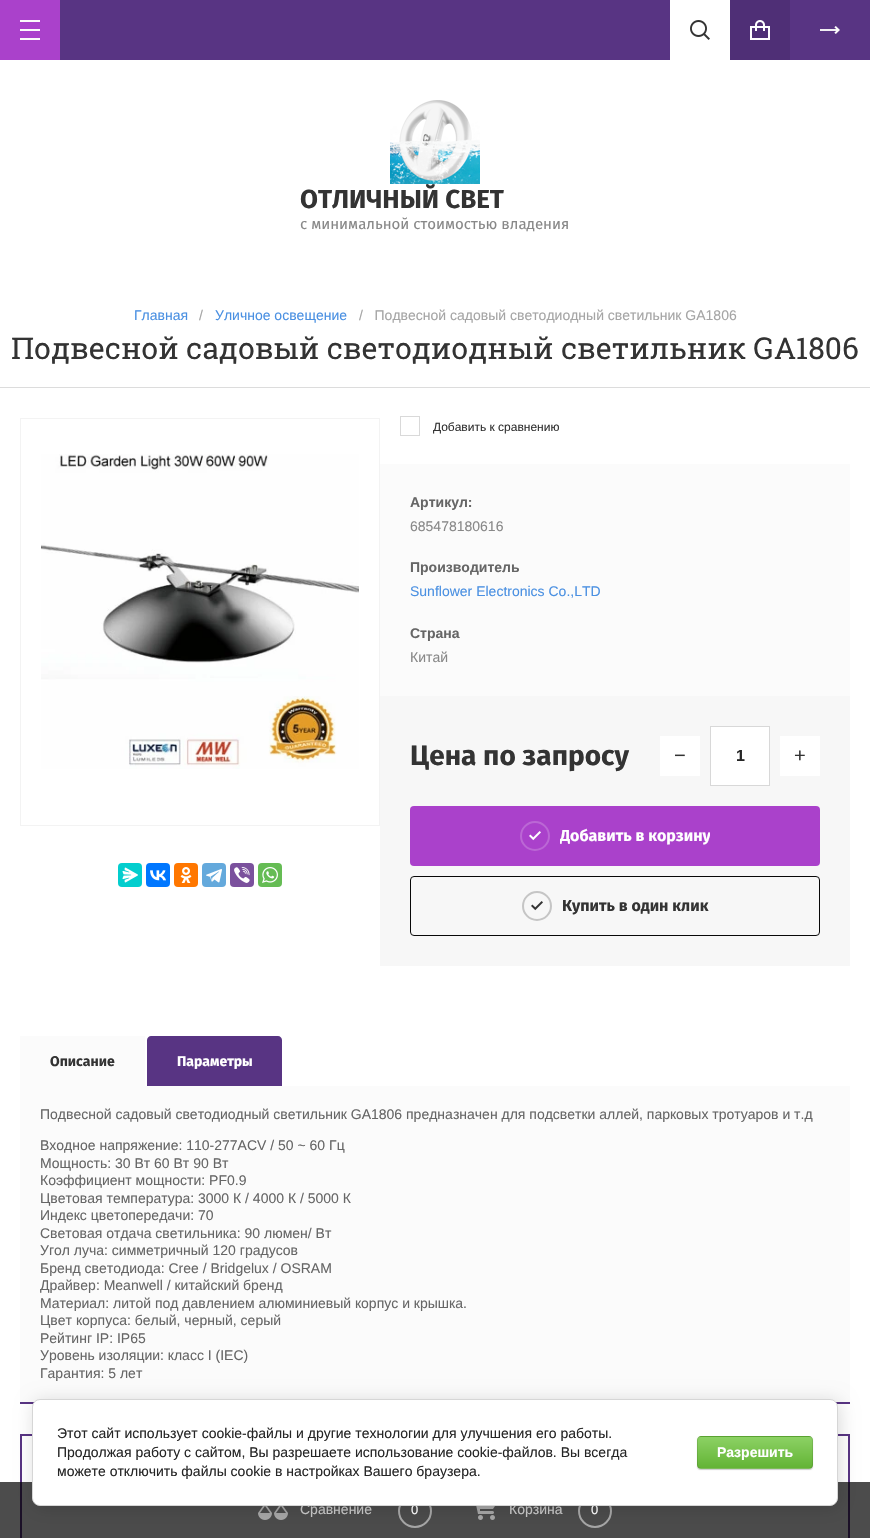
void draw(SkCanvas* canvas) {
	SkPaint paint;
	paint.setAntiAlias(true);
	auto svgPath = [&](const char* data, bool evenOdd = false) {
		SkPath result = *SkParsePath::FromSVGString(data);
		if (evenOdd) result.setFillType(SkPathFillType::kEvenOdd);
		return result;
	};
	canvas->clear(0xffffffff);
	paint.setColor(0xff583483);
	canvas->drawRect(SkRect::MakeXYWH(60, 0, 810, 60), paint);
	paint.setColor(0xffaa41cb);
	canvas->drawRect(SkRect::MakeXYWH(0, 0, 60, 60), paint);
	canvas->drawImageRect(SkImages::DeferredFromEncodedData(SkData::MakeFromFileName("img1.png")), SkRect::MakeXYWH(20, 20, 20, 20), SkSamplingOptions());
	paint.setColor(0xffffffff);
	canvas->drawRect(SkRect::MakeXYWH(670, 0, 60, 60), paint);
	canvas->drawImageRect(SkImages::DeferredFromEncodedData(SkData::MakeFromFileName("img2.png")), SkRect::MakeXYWH(690, 20, 20, 20), SkSamplingOptions());
	paint.setColor(0xff4f2f76);
	canvas->drawRect(SkRect::MakeXYWH(730, 0, 60, 60), paint);
	canvas->drawImageRect(SkImages::DeferredFromEncodedData(SkData::MakeFromFileName("img3.png")), SkRect::MakeXYWH(750, 20, 20, 20), SkSamplingOptions());
	canvas->drawImageRect(SkImages::DeferredFromEncodedData(SkData::MakeFromFileName("img4.png")), SkRect::MakeXYWH(820, 26, 20, 8), SkSamplingOptions());
	canvas->drawImageRect(SkImages::DeferredFromEncodedData(SkData::MakeFromFileName("img5.png")), SkRect::MakeXYWH(390, 100, 90, 84), SkSamplingOptions());
	SkFont f1(fontMgr->matchFamilyStyle("Fira Sans", SkFontStyle::Bold()), 26);
	f1.setSubpixel(true);
	paint.setColor(0xff333333);
	canvas->drawString("ОТЛИЧНЫЙ СВЕТ", 300, 208, f1, paint);
	SkFont f2(fontMgr->matchFamilyStyle("Fira Sans", SkFontStyle::Normal()), 15);
	f2.setSubpixel(true);
	paint.setColor(0xff888888);
	canvas->drawString("с минимальной стоимостью владения", 300, 229, f2, paint);
	paint.setColor(0xffdcdcdc);
	canvas->drawRect(SkRect::MakeXYWH(0, 387, 870, 1), paint);
	SkFont f3(fontMgr->matchFamilyStyle("Liberation Sans", SkFontStyle::Normal()), 14);
	f3.setSubpixel(true);
	paint.setColor(0xff4a90e2);
	canvas->drawString("Главная", 134, 320, f3, paint);
	paint.setColor(0xffa5a5a5);
	canvas->drawString("/", 199, 320, f3, paint);
	paint.setColor(0xff4a90e2);
	canvas->drawString("Уличное освещение", 215, 320, f3, paint);
	paint.setColor(0xffa5a5a5);
	canvas->drawString("/   Подвесной садовый светодиодный светильник GA1806", 359, 320, f3, paint);
	SkFont f4(fontMgr->matchFamilyStyle("Roboto Slab", SkFontStyle::Normal()), 30);
	f4.setSubpixel(true);
	paint.setColor(0xff333333);
	canvas->drawString("Подвесной садовый светодиодный светильник GA1806", 11, 359, f4, paint);
	paint.setStroke(true);
	paint.setStrokeWidth(1);
	paint.setColor(0xfff3f3f3);
	canvas->drawRect(SkRect::MakeXYWH(20.5, 418.5, 359, 407), paint);
	canvas->drawImageRect(SkImages::DeferredFromEncodedData(SkData::MakeFromFileName("img6.png")), SkRect::MakeXYWH(41, 454, 318, 315), SkSamplingOptions());
	paint.setStroke(false);
	paint.setColor(0xff03cece);
	canvas->drawRoundRect(SkRect::MakeXYWH(118, 863, 24, 24), 4, 4, paint);
	canvas->drawImageRect(SkImages::DeferredFromEncodedData(SkData::MakeFromFileName("img7.png")), SkRect::MakeXYWH(122, 867, 16, 16), SkSamplingOptions());
	paint.setColor(0xff0077ff);
	canvas->drawRoundRect(SkRect::MakeXYWH(146, 863, 24, 24), 4, 4, paint);
	canvas->drawImageRect(SkImages::DeferredFromEncodedData(SkData::MakeFromFileName("img8.png")), SkRect::MakeXYWH(150, 870, 16, 11), SkSamplingOptions());
	paint.setColor(0xffff7700);
	canvas->drawRoundRect(SkRect::MakeXYWH(174, 863, 24, 24), 4, 4, paint);
	canvas->drawImageRect(SkImages::DeferredFromEncodedData(SkData::MakeFromFileName("img9.png")), SkRect::MakeXYWH(180, 867, 12, 16), SkSamplingOptions());
	paint.setColor(0xff64a9dc);
	canvas->drawRoundRect(SkRect::MakeXYWH(202, 863, 24, 24), 4, 4, paint);
	canvas->drawImageRect(SkImages::DeferredFromEncodedData(SkData::MakeFromFileName("img10.png")), SkRect::MakeXYWH(206, 869, 16, 14), SkSamplingOptions());
	paint.setColor(0xff7b519d);
	canvas->drawRoundRect(SkRect::MakeXYWH(230, 863, 24, 24), 4, 4, paint);
	canvas->drawImageRect(SkImages::DeferredFromEncodedData(SkData::MakeFromFileName("img11.png")), SkRect::MakeXYWH(234, 867, 16, 16), SkSamplingOptions());
	paint.setColor(0xff65bc54);
	canvas->drawRoundRect(SkRect::MakeXYWH(258, 863, 24, 24), 4, 4, paint);
	canvas->drawImageRect(SkImages::DeferredFromEncodedData(SkData::MakeFromFileName("img12.png")), SkRect::MakeXYWH(262, 867, 16, 16), SkSamplingOptions());
	paint.setStroke(true);
	paint.setColor(0xffd9d9d9);
	canvas->drawRect(SkRect::MakeXYWH(400.5, 416.5, 19, 19), paint);
	SkFont f5(fontMgr->matchFamilyStyle("Liberation Sans", SkFontStyle::Normal()), 12);
	f5.setSubpixel(true);
	paint.setStroke(false);
	paint.setColor(0xff333333);
	canvas->drawString("Добавить к сравнению", 433, 431, f5, paint);
	paint.setColor(0xfffbfbfb);
	canvas->drawRect(SkRect::MakeXYWH(380, 464, 470, 232), paint);
	SkFont f6(fontMgr->matchFamilyStyle("Liberation Sans", SkFontStyle::Bold()), 14);
	f6.setSubpixel(true);
	paint.setColor(0xff666666);
	canvas->drawString("Артикул:", 410, 507, f6, paint);
	paint.setColor(0xff888888);
	canvas->drawString("685478180616", 410, 531, f3, paint);
	paint.setColor(0xff666666);
	canvas->drawString("Производитель", 410, 572, f6, paint);
	paint.setColor(0xff4a90e2);
	canvas->drawString("Sunflower Electronics Co.,LTD", 410, 596, f3, paint);
	paint.setColor(0xff666666);
	canvas->drawString("Страна", 410, 638, f6, paint);
	paint.setColor(0xff888888);
	canvas->drawString("Китай", 410, 662, f3, paint);
	paint.setColor(0xfff7f7f7);
	canvas->drawRect(SkRect::MakeXYWH(380, 696, 470, 270), paint);
	SkFont f7(fontMgr->matchFamilyStyle("Fira Sans", SkFontStyle::Bold()), 28);
	f7.setSubpixel(true);
	paint.setColor(0xff333333);
	canvas->drawString("Цена по запросу", 410, 765, f7, paint);
	paint.setColor(0xffffffff);
	canvas->drawRect(SkRect::MakeXYWH(660, 736, 40, 40), paint);
	SkFont f8(fontMgr->matchFamilyStyle("Liberation Sans", SkFontStyle::Normal()), 20);
	f8.setSubpixel(true);
	paint.setColor(0xff333333);
	canvas->drawString("−", 674, 762, f8, paint);
	paint.setColor(0xffffffff);
	canvas->drawRect(SkRect::MakeXYWH(710.5, 726.5, 59, 59), paint);
	paint.setStroke(true);
	paint.setColor(0xffd8d8d8);
	canvas->drawRect(SkRect::MakeXYWH(710.5, 726.5, 59, 59), paint);
	SkFont f9(fontMgr->matchFamilyStyle("Liberation Sans", SkFontStyle::Bold()), 16);
	f9.setSubpixel(true);
	paint.setStroke(false);
	paint.setColor(0xff262626);
	canvas->drawString("1", 736, 761, f9, paint);
	paint.setColor(0xffffffff);
	canvas->drawRect(SkRect::MakeXYWH(780, 736, 40, 40), paint);
	paint.setColor(0xff333333);
	canvas->drawString("+", 794, 762, f8, paint);
	paint.setColor(0xffaa41cb);
	canvas->drawRoundRect(SkRect::MakeXYWH(410, 806, 410, 60), 4, 4, paint);
	canvas->drawImageRect(SkImages::DeferredFromEncodedData(SkData::MakeFromFileName("img13.png")), SkRect::MakeXYWH(529, 831, 12, 10), SkSamplingOptions());
	paint.setStroke(true);
	paint.setStrokeWidth(2);
	paint.setColor(0xffbb67d5);
	canvas->drawCircle(535, 836, 14, paint);
	canvas->save();
	canvas->clipRect(SkRect::MakeXYWH(560, 819, 150, 34));
	SkFont f10(fontMgr->matchFamilyStyle("Fira Sans", SkFontStyle::Bold()), 16);
	f10.setSubpixel(true);
	paint.setStroke(false);
	paint.setColor(0xffffffff);
	canvas->drawString("Добавить в корзину", 560, 841, f10, paint);
	canvas->restore();
	paint.setStroke(true);
	paint.setStrokeWidth(1);
	paint.setColor(0xff080808);
	canvas->drawRoundRect(SkRect::MakeXYWH(410.5, 876.5, 409, 59), 3.5, 3.5, paint);
	canvas->drawImageRect(SkImages::DeferredFromEncodedData(SkData::MakeFromFileName("img14.png")), SkRect::MakeXYWH(531, 901, 12, 10), SkSamplingOptions());
	paint.setStrokeWidth(2);
	paint.setColor(0xffc5c5c5);
	canvas->drawCircle(537, 906, 14, paint);
	paint.setStroke(false);
	paint.setColor(0xff333333);
	canvas->drawString("Купить в один клик", 562, 911, f10, paint);
	paint.setColor(0xfffbfbfb);
	canvas->drawRect(SkRect::MakeXYWH(20, 1036, 125, 50), paint);
	SkFont f11(fontMgr->matchFamilyStyle("Fira Sans", SkFontStyle::Bold()), 14);
	f11.setSubpixel(true);
	paint.setColor(0xff333333);
	canvas->drawString("Описание", 50, 1066, f11, paint);
	paint.setColor(0xff583483);
	canvas->drawPath(svgPath("M151 1036H278C280 1036 282 1038 282 1040V1086H147V1040C147 1038 149 1036 151 1036Z"), paint);
	paint.setColor(0xffffffff);
	canvas->drawString("Параметры", 177, 1066, f11, paint);
	paint.setColor(0xfffbfbfb);
	canvas->drawRect(SkRect::MakeXYWH(20, 1086, 830, 316), paint);
	paint.setColor(0xff583483);
	canvas->drawRect(SkRect::MakeXYWH(20, 1402, 830, 2), paint);
	paint.setColor(0xff666666);
	canvas->drawString("Подвесной садовый светодиодный светильник GA1806 предназначен для подсветки аллей, парковых тротуаров и т.д", 40, 1119, f3, paint);
	canvas->drawString("Входное напряжение: 110-277ACV / 50 ~ 60 Гц", 40, 1150, f3, paint);
	canvas->drawString("Мощность: 30 Вт 60 Вт 90 Вт", 40, 1168, f3, paint);
	canvas->drawString("Коэффициент мощности: PF0.9", 40, 1185, f3, paint);
	canvas->drawString("Цветовая температура: 3000 К / 4000 К / 5000 К", 40, 1203, f3, paint);
	canvas->drawString("Индекс цветопередачи: 70", 40, 1220, f3, paint);
	canvas->drawString("Световая отдача светильника: 90 люмен/ Вт", 40, 1238, f3, paint);
	canvas->drawString("Угол луча: симметричный 120 градусов", 40, 1255, f3, paint);
	canvas->drawString("Бренд светодиода: Cree / Bridgelux / OSRAM", 40, 1273, f3, paint);
	canvas->drawString("Драйвер: Meanwell / китайский бренд", 40, 1290, f3, paint);
	canvas->drawString("Материал: литой под давлением алюминиевый корпус и крышка.", 40, 1308, f3, paint);
	canvas->drawString("Цвет корпуса: белый, черный, серый", 40, 1325, f3, paint);
	canvas->drawString("Рейтинг IP: IP65", 40, 1343, f3, paint);
	canvas->drawString("Уровень изоляции: класс I (IEC)", 40, 1360, f3, paint);
	canvas->drawString("Гарантия: 5 лет", 40, 1378, f3, paint);
	paint.setStroke(true);
	paint.setColor(0xff583483);
	canvas->drawRect(SkRect::MakeXYWH(21, 1435, 828, 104), paint);
	paint.setStroke(false);
	paint.setColor(0xfffbfbfb);
	canvas->drawRect(SkRect::MakeXYWH(50, 1506, 770, 32), paint);
	paint.setColor(0xb3000000);
	canvas->drawRect(SkRect::MakeXYWH(0, 1482, 870, 56), paint);
	canvas->drawImageRect(SkImages::DeferredFromEncodedData(SkData::MakeFromFileName("img15.png")), SkRect::MakeXYWH(258, 1506, 30, 14), SkSamplingOptions());
	paint.setColor(0xffc9c9c9);
	canvas->drawString("Сравнение", 300, 1514, f3, paint);
	paint.setStroke(true);
	paint.setColor(0x80ffffff);
	canvas->drawCircle(415, 1511, 16, paint);
	SkFont f12(fontMgr->matchFamilyStyle("Liberation Sans", SkFontStyle::Normal()), 13);
	f12.setSubpixel(true);
	paint.setStroke(false);
	paint.setColor(0xffffffff);
	canvas->drawString("0", 411, 1514, f12, paint);
	canvas->drawImageRect(SkImages::DeferredFromEncodedData(SkData::MakeFromFileName("img16.png")), SkRect::MakeXYWH(476, 1506, 19, 14), SkSamplingOptions());
	paint.setColor(0xffc9c9c9);
	canvas->drawString("Корзина", 509, 1514, f3, paint);
	paint.setStroke(true);
	paint.setColor(0x80ffffff);
	canvas->drawCircle(595, 1511, 16, paint);
	paint.setStroke(false);
	paint.setColor(0xffffffff);
	canvas->drawString("0", 591, 1514, f12, paint);
	paint.setColor(0x24000000);
	paint.setMaskFilter(SkMaskFilter::MakeBlur(kNormal_SkBlurStyle, 9));
	canvas->drawRoundRect(SkRect::MakeXYWH(34, 1401, 806, 107), 8, 8, paint);
	paint.setMaskFilter(nullptr);
	paint.setColor(0xffffffff);
	canvas->drawRoundRect(SkRect::MakeXYWH(32.5, 1399.5, 805, 106), 7.5, 7.5, paint);
	paint.setStroke(true);
	paint.setStrokeWidth(1);
	paint.setColor(0xffd6d6d6);
	canvas->drawRoundRect(SkRect::MakeXYWH(32.5, 1399.5, 805, 106), 7.5, 7.5, paint);
	paint.setStroke(false);
	paint.setColor(0xff262626);
	canvas->drawString("Этот сайт использует cookie-файлы и другие технологии для улучшения его работы.", 57, 1438, f3, paint);
	canvas->drawString("Продолжая работу с сайтом, Вы разрешаете использование cookie-файлов. Вы всегда", 57, 1457, f3, paint);
	canvas->drawString("можете отключить файлы cookie в настройках Вашего браузера.", 57, 1476, f3, paint);
	paint.setColor(0x33000000);
	paint.setMaskFilter(SkMaskFilter::MakeBlur(kNormal_SkBlurStyle, 0.5));
	canvas->drawRoundRect(SkRect::MakeXYWH(697, 1437, 116, 33), 4, 4, paint);
	paint.setMaskFilter(nullptr);
	canvas->save();
	canvas->clipPath(svgPath("M701 1436H809C811 1436 813 1438 813 1440V1465C813 1467 811 1469 809 1469H701C699 1469 697 1467 697 1465V1440C697 1438 699 1436 701 1436Z"), true);
	{
		const SkColor colors[] = {0xff8cd164, 0xff63b435};
		const float stops[] = {0, 1};
		const SkPoint ends[] = {{755, 1406}, {755, 1437}};
		paint.setShader(SkGradientShader::MakeLinear(ends, colors, stops, 2, SkTileMode::kClamp));
		paint.setAlpha(255);
	}
	canvas->drawRect(SkRect::MakeXYWH(697, 1436, 116, 1), paint);
	{
		const SkColor colors[] = {0xff8cd164, 0xff63b435};
		const float stops[] = {0, 1};
		const SkPoint ends[] = {{755, 1437}, {755, 1468}};
		paint.setShader(SkGradientShader::MakeLinear(ends, colors, stops, 2, SkTileMode::kClamp));
		paint.setAlpha(255);
	}
	canvas->drawRect(SkRect::MakeXYWH(697, 1437, 116, 31), paint);
	{
		const SkColor colors[] = {0xff8cd164, 0xff63b435};
		const float stops[] = {0, 1};
		const SkPoint ends[] = {{755, 1468}, {755, 1499}};
		paint.setShader(SkGradientShader::MakeLinear(ends, colors, stops, 2, SkTileMode::kClamp));
		paint.setAlpha(255);
	}
	canvas->drawRect(SkRect::MakeXYWH(697, 1468, 116, 1), paint);
	canvas->restore();
	paint.setStroke(true);
	paint.setShader(nullptr);
	paint.setColor(0x1a000000);
	canvas->drawRoundRect(SkRect::MakeXYWH(697.5, 1436.5, 115, 32), 3.5, 3.5, paint);
	paint.setStroke(false);
	paint.setColor(0xffffffff);
	canvas->drawString("Разрешить", 717, 1457, f6, paint);
}
